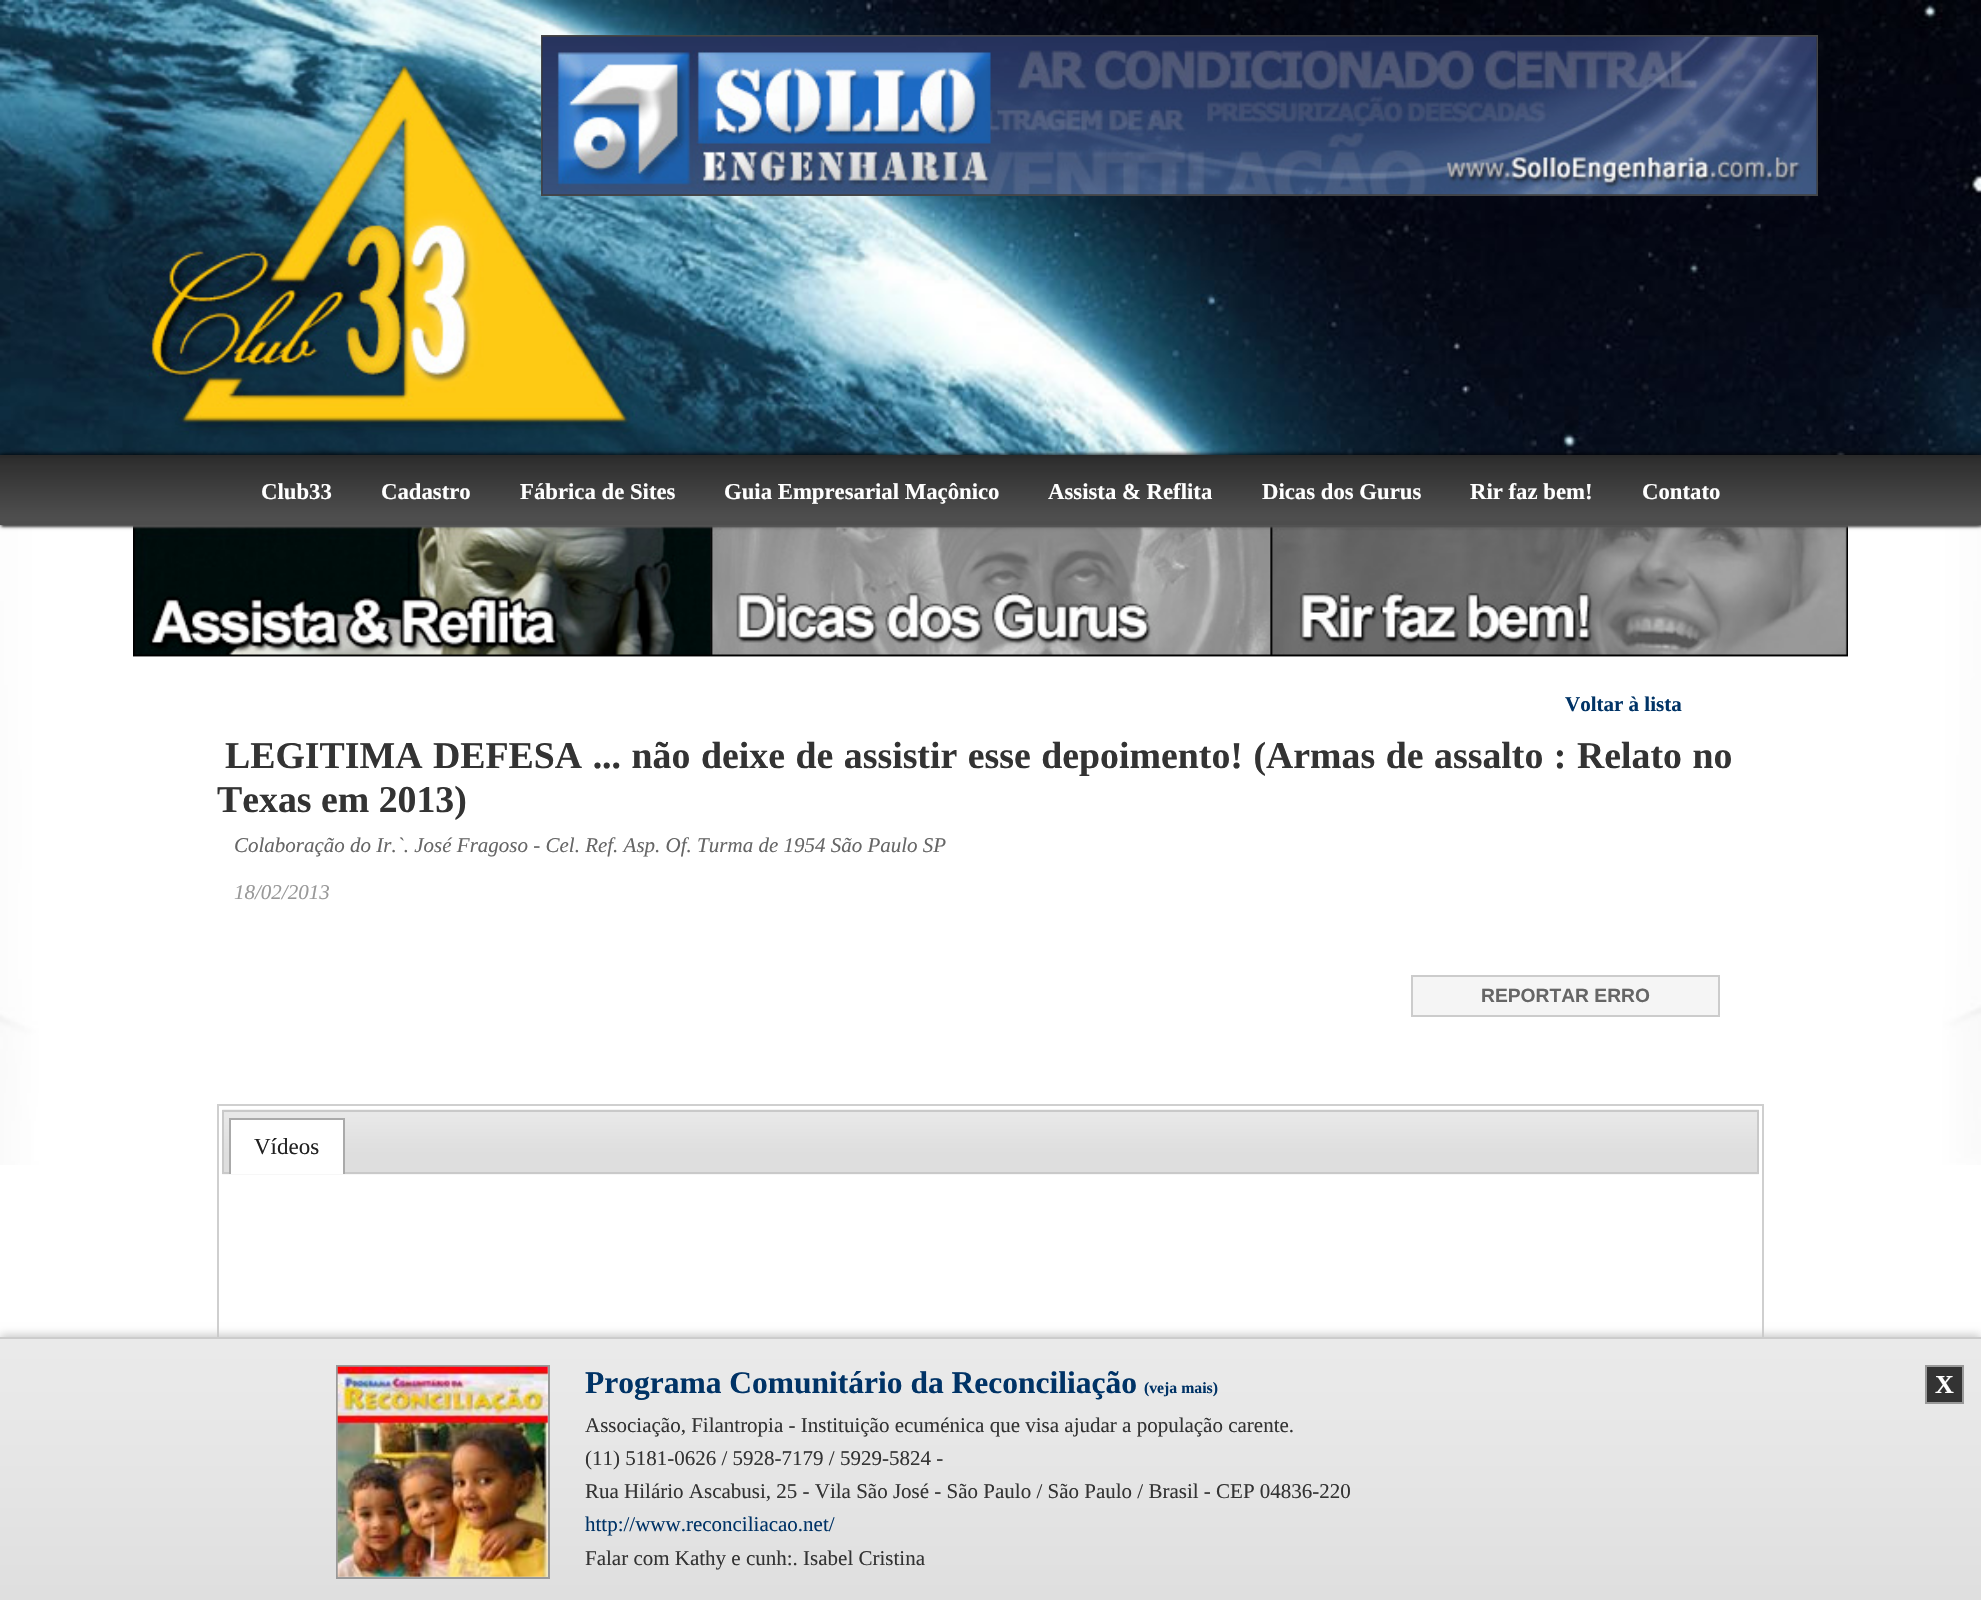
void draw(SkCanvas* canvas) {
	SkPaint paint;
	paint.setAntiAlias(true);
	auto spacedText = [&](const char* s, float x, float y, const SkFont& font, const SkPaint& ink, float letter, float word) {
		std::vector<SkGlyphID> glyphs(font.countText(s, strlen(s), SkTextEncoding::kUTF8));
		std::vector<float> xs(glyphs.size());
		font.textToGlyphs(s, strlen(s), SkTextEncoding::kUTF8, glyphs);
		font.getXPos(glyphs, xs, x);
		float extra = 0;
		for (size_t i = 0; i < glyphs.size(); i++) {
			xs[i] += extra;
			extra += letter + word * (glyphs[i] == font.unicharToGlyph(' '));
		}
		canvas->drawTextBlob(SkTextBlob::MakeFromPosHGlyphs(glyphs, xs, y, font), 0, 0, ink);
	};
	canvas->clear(0xffffffff);
	canvas->drawImageRect(SkImages::DeferredFromEncodedData(SkData::MakeFromFileName("img5.png")), SkRect::MakeXYWH(0, 525, 1981, 640), SkSamplingOptions());
	canvas->drawImageRect(SkImages::DeferredFromEncodedData(SkData::MakeFromFileName("img6.png")), SkRect::MakeXYWH(133, 525, 1715, 132), SkSamplingOptions());
	canvas->drawImageRect(SkImages::DeferredFromEncodedData(SkData::MakeFromFileName("img7.png")), SkRect::MakeXYWH(133, 526, 578, 131), SkSamplingOptions());
	canvas->drawImageRect(SkImages::DeferredFromEncodedData(SkData::MakeFromFileName("img8.png")), SkRect::MakeXYWH(710, 526, 561, 131), SkSamplingOptions());
	canvas->drawImageRect(SkImages::DeferredFromEncodedData(SkData::MakeFromFileName("img9.png")), SkRect::MakeXYWH(1270, 526, 578, 131), SkSamplingOptions());
	paint.setColor(0xff999999);
	paint.setMaskFilter(SkMaskFilter::MakeBlur(kNormal_SkBlurStyle, 1));
	canvas->drawRect(SkRect::MakeXYWH(2, 2, 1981, 525), paint);
	paint.setMaskFilter(nullptr);
	canvas->drawImageRect(SkImages::DeferredFromEncodedData(SkData::MakeFromFileName("img1.png")), SkRect::MakeXYWH(0, 0, 1981, 455), SkSamplingOptions());
	canvas->drawImageRect(SkImages::DeferredFromEncodedData(SkData::MakeFromFileName("img2.png")), SkRect::MakeXYWH(133, 0, 517, 455), SkSamplingOptions());
	paint.setColor(0xe6ffffff);
	canvas->drawRect(SkRect::MakeXYWH(541, 35, 1277, 161), paint);
	paint.setStroke(true);
	paint.setStrokeWidth(2);
	paint.setColor(0xe6333333);
	canvas->drawRect(SkRect::MakeXYWH(542, 36, 1275, 159), paint);
	canvas->drawImageRect(SkImages::DeferredFromEncodedData(SkData::MakeFromFileName("img3.png")), SkRect::MakeXYWH(542, 36, 1275, 159), SkSamplingOptions());
	paint.setStroke(false);
	paint.setColor(0xff000000);
	paint.setMaskFilter(SkMaskFilter::MakeBlur(kNormal_SkBlurStyle, 2.5));
	canvas->drawRect(SkRect::MakeXYWH(0, 455, 1981, 70), paint);
	paint.setMaskFilter(nullptr);
	canvas->drawImageRect(SkImages::DeferredFromEncodedData(SkData::MakeFromFileName("img4.png")), SkRect::MakeXYWH(0, 455, 1981, 70), SkSamplingOptions());
	SkFont f1(fontMgr->matchFamilyStyle("Liberation Serif", SkFontStyle::Bold()), 22.75);
	f1.setSubpixel(true);
	paint.setColor(0xffffffff);
	canvas->drawString("Club33", 261, 499, f1, paint);
	canvas->drawString("Cadastro", 381, 499, f1, paint);
	canvas->drawString("Fábrica de Sites", 520, 499, f1, paint);
	canvas->drawString("Guia Empresarial Maçônico", 724, 499, f1, paint);
	canvas->drawString("Assista & Reflita", 1048, 499, f1, paint);
	canvas->drawString("Dicas dos Gurus", 1262, 499, f1, paint);
	canvas->drawString("Rir faz bem!", 1470, 499, f1, paint);
	canvas->drawString("Contato", 1642, 499, f1, paint);
	SkFont f2(fontMgr->matchFamilyStyle("Liberation Serif", SkFontStyle::Bold()), 21);
	f2.setSubpixel(true);
	paint.setColor(0xff003366);
	canvas->drawString("Voltar à lista", 1565, 711, f2, paint);
	SkFont f3(fontMgr->matchFamilyStyle("Liberation Serif", SkFontStyle::Bold()), 37.8);
	f3.setSubpixel(true);
	paint.setColor(0xff333333);
	spacedText("LEGITIMA DEFESA ... não deixe de assistir esse depoimento! (Armas de assalto : Relato no", 225, 768, f3, paint, 0, 1.1);
	canvas->drawString("Texas em 2013)", 217, 812, f3, paint);
	SkFont f4(fontMgr->matchFamilyStyle("Liberation Serif", SkFontStyle::Italic()), 21);
	f4.setSubpixel(true);
	paint.setColor(0xff666666);
	canvas->drawString("Colaboração do Ir.`. José Fragoso - Cel. Ref. Asp. Of. Turma de 1954 São Paulo SP", 234, 852, f4, paint);
	paint.setColor(0xff999999);
	canvas->drawString("18/02/2013", 234, 899, f4, paint);
	paint.setColor(0xfff5f5f5);
	canvas->drawRect(SkRect::MakeXYWH(1412, 976, 307, 40), paint);
	paint.setStroke(true);
	paint.setColor(0xffcccccc);
	canvas->drawRect(SkRect::MakeXYWH(1412, 976, 307, 40), paint);
	SkFont f5(fontMgr->matchFamilyStyle("Liberation Sans", SkFontStyle::Bold()), 19.25);
	f5.setSubpixel(true);
	paint.setStroke(false);
	paint.setColor(0xff666666);
	canvas->drawString("REPORTAR ERRO", 1481, 1002, f5, paint);
	paint.setStroke(true);
	paint.setColor(0xffcfcfcf);
	canvas->drawRect(SkRect::MakeXYWH(218, 1105, 1545, 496), paint);
	canvas->drawImageRect(SkImages::DeferredFromEncodedData(SkData::MakeFromFileName("img10.png")), SkRect::MakeXYWH(222, 1109, 1537, 66), SkSamplingOptions());
	paint.setColor(0xffc9c9c9);
	canvas->drawRect(SkRect::MakeXYWH(223, 1111, 1535, 62), paint);
	paint.setStroke(false);
	paint.setColor(0xffffffff);
	canvas->drawRect(SkRect::MakeXYWH(231, 1120, 112, 54), paint);
	paint.setColor(0xffaaaaaa);
	canvas->drawRect(SkRect::MakeXYWH(229, 1118, 116, 2), paint);
	canvas->drawRect(SkRect::MakeXYWH(343, 1118, 2, 56), paint);
	canvas->drawRect(SkRect::MakeXYWH(229, 1118, 2, 56), paint);
	SkFont f6(fontMgr->matchFamilyStyle("Liberation Serif", SkFontStyle::Normal()), 23);
	f6.setSubpixel(true);
	paint.setColor(0xff212121);
	canvas->drawString("Vídeos", 254, 1154, f6, paint);
	paint.setColor(0xffc7c7c7);
	paint.setMaskFilter(SkMaskFilter::MakeBlur(kNormal_SkBlurStyle, 4.5));
	canvas->drawRect(SkRect::MakeXYWH(0, 1335, 1981, 265), paint);
	paint.setMaskFilter(nullptr);
	canvas->drawImageRect(SkImages::DeferredFromEncodedData(SkData::MakeFromFileName("img11.png")), SkRect::MakeXYWH(0, 1339, 1981, 261), SkSamplingOptions());
	paint.setColor(0xffcccccc);
	canvas->drawRect(SkRect::MakeXYWH(0, 1337, 1981, 2), paint);
	paint.setStroke(true);
	paint.setColor(0xff999999);
	canvas->drawRect(SkRect::MakeXYWH(337, 1366, 212, 212), paint);
	canvas->drawImageRect(SkImages::DeferredFromEncodedData(SkData::MakeFromFileName("img12.png")), SkRect::MakeXYWH(337, 1366, 211, 211), SkSamplingOptions());
	SkFont f7(fontMgr->matchFamilyStyle("Liberation Serif", SkFontStyle::Bold()), 31.5);
	f7.setSubpixel(true);
	paint.setStroke(false);
	paint.setColor(0xff003366);
	canvas->drawString("Programa Comunitário da Reconciliação", 585, 1393, f7, paint);
	SkFont f8(fontMgr->matchFamilyStyle("Liberation Serif", SkFontStyle::Bold()), 15.75);
	f8.setSubpixel(true);
	canvas->drawString("(veja mais)", 1144, 1393, f8, paint);
	SkFont f9(fontMgr->matchFamilyStyle("Liberation Serif", SkFontStyle::Normal()), 21);
	f9.setSubpixel(true);
	paint.setColor(0xff333333);
	canvas->drawString("Associação, Filantropia - Instituição ecuménica que visa ajudar a população carente.", 585, 1432, f9, paint);
	canvas->drawString("(11) 5181-0626 / 5928-7179 / 5929-5824 -", 585, 1465, f9, paint);
	canvas->drawString("Rua Hilário Ascabusi, 25 - Vila São José - São Paulo / São Paulo / Brasil - CEP 04836-220", 585, 1498, f9, paint);
	paint.setColor(0xff003366);
	canvas->drawString("http://www.reconciliacao.net/", 585, 1531, f9, paint);
	paint.setColor(0xff333333);
	canvas->drawString("Falar com Kathy e cunh:. Isabel Cristina", 585, 1565, f9, paint);
	canvas->drawRect(SkRect::MakeXYWH(1926, 1366, 37, 37), paint);
	paint.setStroke(true);
	paint.setColor(0xff999999);
	canvas->drawRect(SkRect::MakeXYWH(1926, 1366, 37, 37), paint);
	SkFont f10(fontMgr->matchFamilyStyle("Liberation Serif", SkFontStyle::Bold()), 26);
	f10.setSubpixel(true);
	paint.setStroke(false);
	paint.setColor(0xffffffff);
	canvas->drawString("X", 1935, 1393, f10, paint);
}
